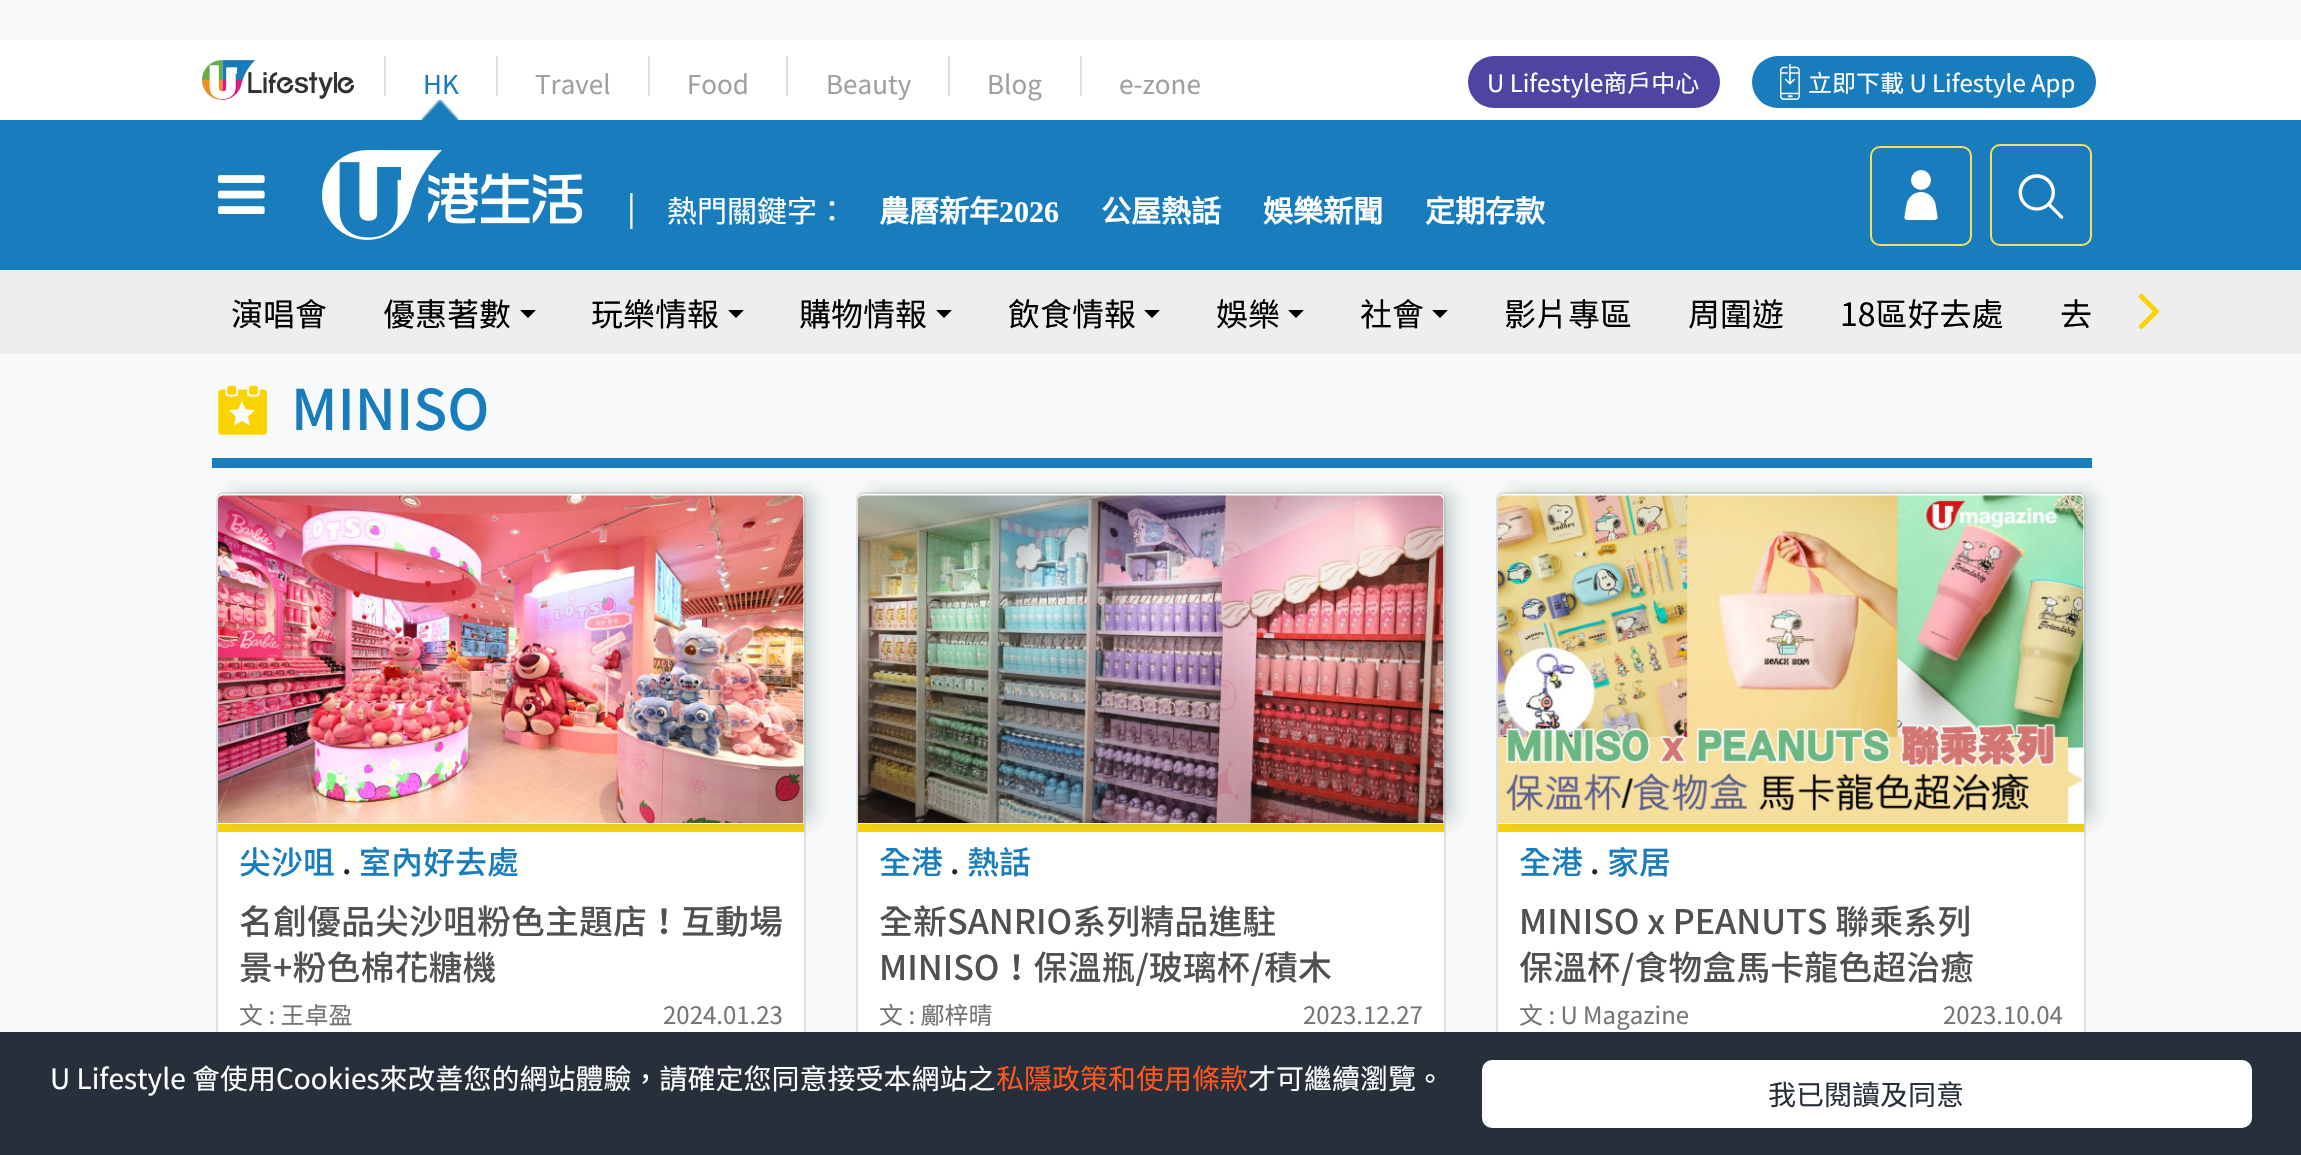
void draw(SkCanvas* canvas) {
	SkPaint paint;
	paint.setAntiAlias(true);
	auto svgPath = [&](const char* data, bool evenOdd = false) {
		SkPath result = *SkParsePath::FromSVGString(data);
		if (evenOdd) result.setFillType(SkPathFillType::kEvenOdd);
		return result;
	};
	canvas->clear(0xffffffff);
	paint.setColor(0xfff8f9fa);
	canvas->drawRect(SkRect::MakeXYWH(0, 0, 2301, 40), paint);
	canvas->drawImageRect(SkImages::DeferredFromEncodedData(SkData::MakeFromFileName("img1.png")), SkRect::MakeXYWH(202, 60, 152, 40), SkSamplingOptions());
	paint.setColor(0xffdfdfdf);
	canvas->drawRect(SkRect::MakeXYWH(384, 56, 2, 40), paint);
	canvas->drawImageRect(SkImages::DeferredFromEncodedData(SkData::MakeFromFileName("img2.png")), SkRect::MakeXYWH(422, 100, 36, 20), SkSamplingOptions());
	SkFont f1(fontMgr->matchFamilyStyle("Noto Sans TC", SkFontStyle::Normal()), 26);
	f1.setSubpixel(true);
	paint.setColor(0xff197cbc);
	canvas->drawString("HK", 423, 94, f1, paint);
	paint.setColor(0xffdfdfdf);
	canvas->drawRect(SkRect::MakeXYWH(496, 56, 2, 40), paint);
	paint.setColor(0xff9fa0a0);
	canvas->drawString("Travel", 535, 94, f1, paint);
	paint.setColor(0xffdfdfdf);
	canvas->drawRect(SkRect::MakeXYWH(648, 56, 2, 40), paint);
	paint.setColor(0xff9fa0a0);
	canvas->drawString("Food", 687, 94, f1, paint);
	paint.setColor(0xffdfdfdf);
	canvas->drawRect(SkRect::MakeXYWH(786, 56, 2, 40), paint);
	paint.setColor(0xff9fa0a0);
	canvas->drawString("Beauty", 826, 94, f1, paint);
	paint.setColor(0xffdfdfdf);
	canvas->drawRect(SkRect::MakeXYWH(948, 56, 2, 40), paint);
	paint.setColor(0xff9fa0a0);
	canvas->drawString("Blog", 987, 94, f1, paint);
	paint.setColor(0xffdfdfdf);
	canvas->drawRect(SkRect::MakeXYWH(1080, 56, 2, 40), paint);
	paint.setColor(0xff9fa0a0);
	canvas->drawString("e-zone", 1119, 94, f1, paint);
	paint.setColor(0xff4e45a3);
	canvas->drawRoundRect(SkRect::MakeXYWH(1468, 56, 252, 52), 26, 26, paint);
	SkFont f2(fontMgr->matchFamilyStyle("Noto Sans TC", SkFontStyle::Normal()), 24);
	f2.setSubpixel(true);
	paint.setColor(0xffffffff);
	canvas->drawString("U Lifestyle商戶中心", 1487, 92, f2, paint);
	paint.setColor(0xff197cbc);
	canvas->drawRoundRect(SkRect::MakeXYWH(1752, 56, 344, 52), 26, 26, paint);
	canvas->drawImageRect(SkImages::DeferredFromEncodedData(SkData::MakeFromFileName("img3.png")), SkRect::MakeXYWH(1780, 64, 20, 36), SkSamplingOptions());
	paint.setColor(0xffffffff);
	canvas->drawString("立即下載 U Lifestyle App", 1808, 92, f2, paint);
	paint.setColor(0xff197cbc);
	canvas->drawRect(SkRect::MakeXYWH(0, 120, 2301, 150), paint);
	canvas->drawImageRect(SkImages::DeferredFromEncodedData(SkData::MakeFromFileName("img4.png")), SkRect::MakeXYWH(218, 175, 47, 39), SkSamplingOptions());
	canvas->drawImageRect(SkImages::DeferredFromEncodedData(SkData::MakeFromFileName("img5.png")), SkRect::MakeXYWH(322, 150, 261, 90), SkSamplingOptions());
	SkFont f3(fontMgr->matchFamilyStyle("Noto Sans TC", SkFontStyle::Normal()), 32);
	f3.setSubpixel(true);
	paint.setColor(0xffffffff);
	canvas->drawString("|", 627, 220, f3, paint);
	SkFont f4(fontMgr->matchFamilyStyle("Noto Sans CJK HK", SkFontStyle::Normal()), 30);
	f4.setSubpixel(true);
	canvas->drawString("熱門關鍵字：", 667, 222, f4, paint);
	SkFont f5(fontMgr->matchFamilyStyle("Noto Sans CJK HK", SkFontStyle::Bold()), 30);
	f5.setSubpixel(true);
	canvas->drawString("農曆新年", 879, 222, f5, paint);
	SkFont f6(fontMgr->matchFamilyStyle("Liberation Serif", SkFontStyle::Bold()), 30);
	f6.setSubpixel(true);
	canvas->drawString("2026", 999, 222, f6, paint);
	canvas->drawString("公屋熱話", 1101, 222, f5, paint);
	canvas->drawString("娛樂新聞", 1263, 222, f5, paint);
	canvas->drawString("定期存款", 1425, 222, f5, paint);
	paint.setStroke(true);
	paint.setStrokeWidth(2);
	paint.setColor(0xfff5df63);
	canvas->drawRoundRect(SkRect::MakeXYWH(1871, 147, 100, 98), 9, 9, paint);
	paint.setStroke(false);
	paint.setColor(0xffffffff);
	canvas->drawPath(svgPath("M1937.5 216.5L1935.5 204C1934 197 1928 192 1921 192C1914 192 1908 197.5 1906.5 204L1904.5 216.5C1904 218.5 1905.5 220 1907.5 220H1934C1936.5 220 1938 218.5 1937.5 216.5Z"), paint);
	canvas->drawCircle(1921, 180, 10, paint);
	paint.setStroke(true);
	paint.setColor(0xfff5df63);
	canvas->drawRoundRect(SkRect::MakeXYWH(1991, 145, 100, 100), 9, 9, paint);
	canvas->drawImageRect(SkImages::DeferredFromEncodedData(SkData::MakeFromFileName("img6.png")), SkRect::MakeXYWH(2018, 174, 46, 45), SkSamplingOptions());
	paint.setStroke(false);
	paint.setColor(0xffeeeeee);
	canvas->drawRect(SkRect::MakeXYWH(0, 270, 2301, 84), paint);
	paint.setColor(0xff000000);
	canvas->drawString("演唱會", 231, 326, f3, paint);
	canvas->drawString("優惠著數", 383, 326, f3, paint);
	canvas->drawPath(svgPath("M520 310H536L528 318Z"), paint);
	canvas->drawString("玩樂情報", 591, 326, f3, paint);
	canvas->drawPath(svgPath("M728 310H744L736 318Z"), paint);
	canvas->drawString("購物情報", 799, 326, f3, paint);
	canvas->drawPath(svgPath("M936 310H952L944 318Z"), paint);
	canvas->drawString("飲食情報", 1008, 326, f3, paint);
	canvas->drawPath(svgPath("M1144 310H1160L1152 318Z"), paint);
	canvas->drawString("娛樂", 1216, 326, f3, paint);
	canvas->drawPath(svgPath("M1288 310H1304L1296 318Z"), paint);
	canvas->drawString("社會", 1360, 326, f3, paint);
	canvas->drawPath(svgPath("M1432 310H1448L1440 318Z"), paint);
	canvas->drawString("影片專區", 1504, 326, f3, paint);
	canvas->drawString("周圍遊", 1688, 326, f3, paint);
	canvas->drawString("18區好去處", 1840, 326, f3, paint);
	canvas->drawString("去", 2060, 326, f3, paint);
	canvas->drawImageRect(SkImages::DeferredFromEncodedData(SkData::MakeFromFileName("img7.png")), SkRect::MakeXYWH(2138, 293, 22, 37), SkSamplingOptions());
	paint.setColor(0xfff8f9fa);
	canvas->drawRect(SkRect::MakeXYWH(0, 354, 2301, 678), paint);
	paint.setColor(0xff197cbc);
	canvas->drawRect(SkRect::MakeXYWH(212, 458, 1880, 10), paint);
	canvas->drawImageRect(SkImages::DeferredFromEncodedData(SkData::MakeFromFileName("img8.png")), SkRect::MakeXYWH(218, 385, 49, 50), SkSamplingOptions());
	SkFont f7(fontMgr->matchFamilyStyle("Noto Sans TC", SkFontStyle(500, SkFontStyle::kNormal_Width, SkFontStyle::kUpright_Slant)), 56);
	f7.setSubpixel(true);
	canvas->drawString("MINISO", 291, 430, f7, paint);
	paint.setColor(0xffffffff);
	canvas->drawRoundRect(SkRect::MakeXYWH(216, 492, 590, 558), 8, 8, paint);
	paint.setStroke(true);
	paint.setColor(0x1f000000);
	canvas->drawRoundRect(SkRect::MakeXYWH(217, 493, 588, 556), 7, 7, paint);
	paint.setStroke(false);
	paint.setColor(0xfff9d400);
	canvas->drawRect(SkRect::MakeXYWH(218, 824, 586, 8), paint);
	canvas->save();
	canvas->clipPath(svgPath("M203 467H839V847H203ZM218 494H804V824H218Z", true), true);
	paint.setColor(0x8093aaa8);
	paint.setMaskFilter(SkMaskFilter::MakeBlur(kNormal_SkBlurStyle, 8));
	canvas->drawRect(SkRect::MakeXYWH(228, 492, 586, 330), paint);
	paint.setMaskFilter(nullptr);
	canvas->restore();
	canvas->drawImageRect(SkImages::DeferredFromEncodedData(SkData::MakeFromFileName("img9.png")), SkRect::MakeXYWH(218, 495, 586, 329), SkSamplingOptions());
	SkFont f8(fontMgr->matchFamilyStyle("Noto Sans TC", SkFontStyle(500, SkFontStyle::kNormal_Width, SkFontStyle::kUpright_Slant)), 32);
	f8.setSubpixel(true);
	paint.setColor(0xff197cbc);
	canvas->drawString("尖沙咀", 239, 874, f8, paint);
	paint.setColor(0xff212529);
	canvas->drawString(".", 342, 874, f8, paint);
	paint.setColor(0xff197cbc);
	canvas->drawString("室內好去處", 359, 874, f8, paint);
	SkFont f9(fontMgr->matchFamilyStyle("Noto Sans TC", SkFontStyle(500, SkFontStyle::kNormal_Width, SkFontStyle::kUpright_Slant)), 34);
	f9.setSubpixel(true);
	paint.setColor(0xff505050);
	canvas->drawString("名創優品尖沙咀粉色主題店！互動場", 239, 934, f9, paint);
	canvas->drawString("景+粉色棉花糖機", 239, 980, f9, paint);
	paint.setColor(0xff757575);
	canvas->drawString("文 : 王卓盈", 239, 1024, f2, paint);
	canvas->drawString("2024.01.23", 663, 1024, f2, paint);
	paint.setColor(0xffffffff);
	canvas->drawRoundRect(SkRect::MakeXYWH(856, 492, 590, 558), 8, 8, paint);
	paint.setStroke(true);
	paint.setColor(0x1f000000);
	canvas->drawRoundRect(SkRect::MakeXYWH(857, 493, 588, 556), 7, 7, paint);
	paint.setStroke(false);
	paint.setColor(0xfff9d400);
	canvas->drawRect(SkRect::MakeXYWH(858, 824, 586, 8), paint);
	canvas->save();
	canvas->clipPath(svgPath("M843 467H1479V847H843ZM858 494H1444V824H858Z", true), true);
	paint.setColor(0x8093aaa8);
	paint.setMaskFilter(SkMaskFilter::MakeBlur(kNormal_SkBlurStyle, 8));
	canvas->drawRect(SkRect::MakeXYWH(868, 492, 586, 330), paint);
	paint.setMaskFilter(nullptr);
	canvas->restore();
	canvas->drawImageRect(SkImages::DeferredFromEncodedData(SkData::MakeFromFileName("img10.png")), SkRect::MakeXYWH(858, 495, 586, 329), SkSamplingOptions());
	paint.setColor(0xff197cbc);
	canvas->drawString("全港", 879, 874, f8, paint);
	paint.setColor(0xff212529);
	canvas->drawString(".", 950, 874, f8, paint);
	paint.setColor(0xff197cbc);
	canvas->drawString("熱話", 967, 874, f8, paint);
	paint.setColor(0xff505050);
	canvas->drawString("全新SANRIO系列精品進駐", 879, 934, f9, paint);
	canvas->drawString("MINISO！保溫瓶/玻璃杯/積木", 879, 980, f9, paint);
	paint.setColor(0xff757575);
	canvas->drawString("文 : 鄺梓晴", 879, 1024, f2, paint);
	canvas->drawString("2023.12.27", 1303, 1024, f2, paint);
	paint.setColor(0xffffffff);
	canvas->drawRoundRect(SkRect::MakeXYWH(1496, 492, 590, 558), 8, 8, paint);
	paint.setStroke(true);
	paint.setColor(0x1f000000);
	canvas->drawRoundRect(SkRect::MakeXYWH(1497, 493, 588, 556), 7, 7, paint);
	paint.setStroke(false);
	paint.setColor(0xfff9d400);
	canvas->drawRect(SkRect::MakeXYWH(1498, 824, 586, 8), paint);
	canvas->save();
	canvas->clipPath(svgPath("M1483 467H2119V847H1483ZM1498 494H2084V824H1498Z", true), true);
	paint.setColor(0x8093aaa8);
	paint.setMaskFilter(SkMaskFilter::MakeBlur(kNormal_SkBlurStyle, 8));
	canvas->drawRect(SkRect::MakeXYWH(1508, 492, 586, 330), paint);
	paint.setMaskFilter(nullptr);
	canvas->restore();
	canvas->drawImageRect(SkImages::DeferredFromEncodedData(SkData::MakeFromFileName("img11.png")), SkRect::MakeXYWH(1498, 495, 586, 329), SkSamplingOptions());
	paint.setColor(0xff197cbc);
	canvas->drawString("全港", 1519, 874, f8, paint);
	paint.setColor(0xff212529);
	canvas->drawString(".", 1590, 874, f8, paint);
	paint.setColor(0xff197cbc);
	canvas->drawString("家居", 1607, 874, f8, paint);
	paint.setColor(0xff505050);
	canvas->drawString("MINISO x PEANUTS 聯乘系列", 1519, 934, f9, paint);
	canvas->drawString("保溫杯/食物盒馬卡龍色超治癒", 1519, 980, f9, paint);
	paint.setColor(0xff757575);
	canvas->drawString("文 : U Magazine", 1519, 1024, f2, paint);
	canvas->drawString("2023.10.04", 1943, 1024, f2, paint);
	paint.setColor(0xff262f3a);
	canvas->drawRect(SkRect::MakeXYWH(0, 1032, 2301, 123), paint);
	SkFont f10(fontMgr->matchFamilyStyle("Noto Sans TC", SkFontStyle::Normal()), 28);
	f10.setSubpixel(true);
	paint.setColor(0xffffffff);
	canvas->drawString("U Lifestyle 會使用Cookies來改善您的網站體驗，請確定您同意接受本網站之", 50, 1089, f10, paint);
	paint.setColor(0xffff5722);
	canvas->drawString("私隱政策和使用條款", 996, 1089, f10, paint);
	paint.setColor(0xffffffff);
	canvas->drawString("才可繼續瀏覽。", 1248, 1089, f10, paint);
	canvas->drawRoundRect(SkRect::MakeXYWH(1483, 1061, 768, 66), 9, 9, paint);
	paint.setStroke(true);
	canvas->drawRoundRect(SkRect::MakeXYWH(1483, 1061, 768, 66), 9, 9, paint);
	paint.setStroke(false);
	paint.setColor(0xff262f3a);
	canvas->drawString("我已閱讀及同意", 1768, 1105, f10, paint);
}
